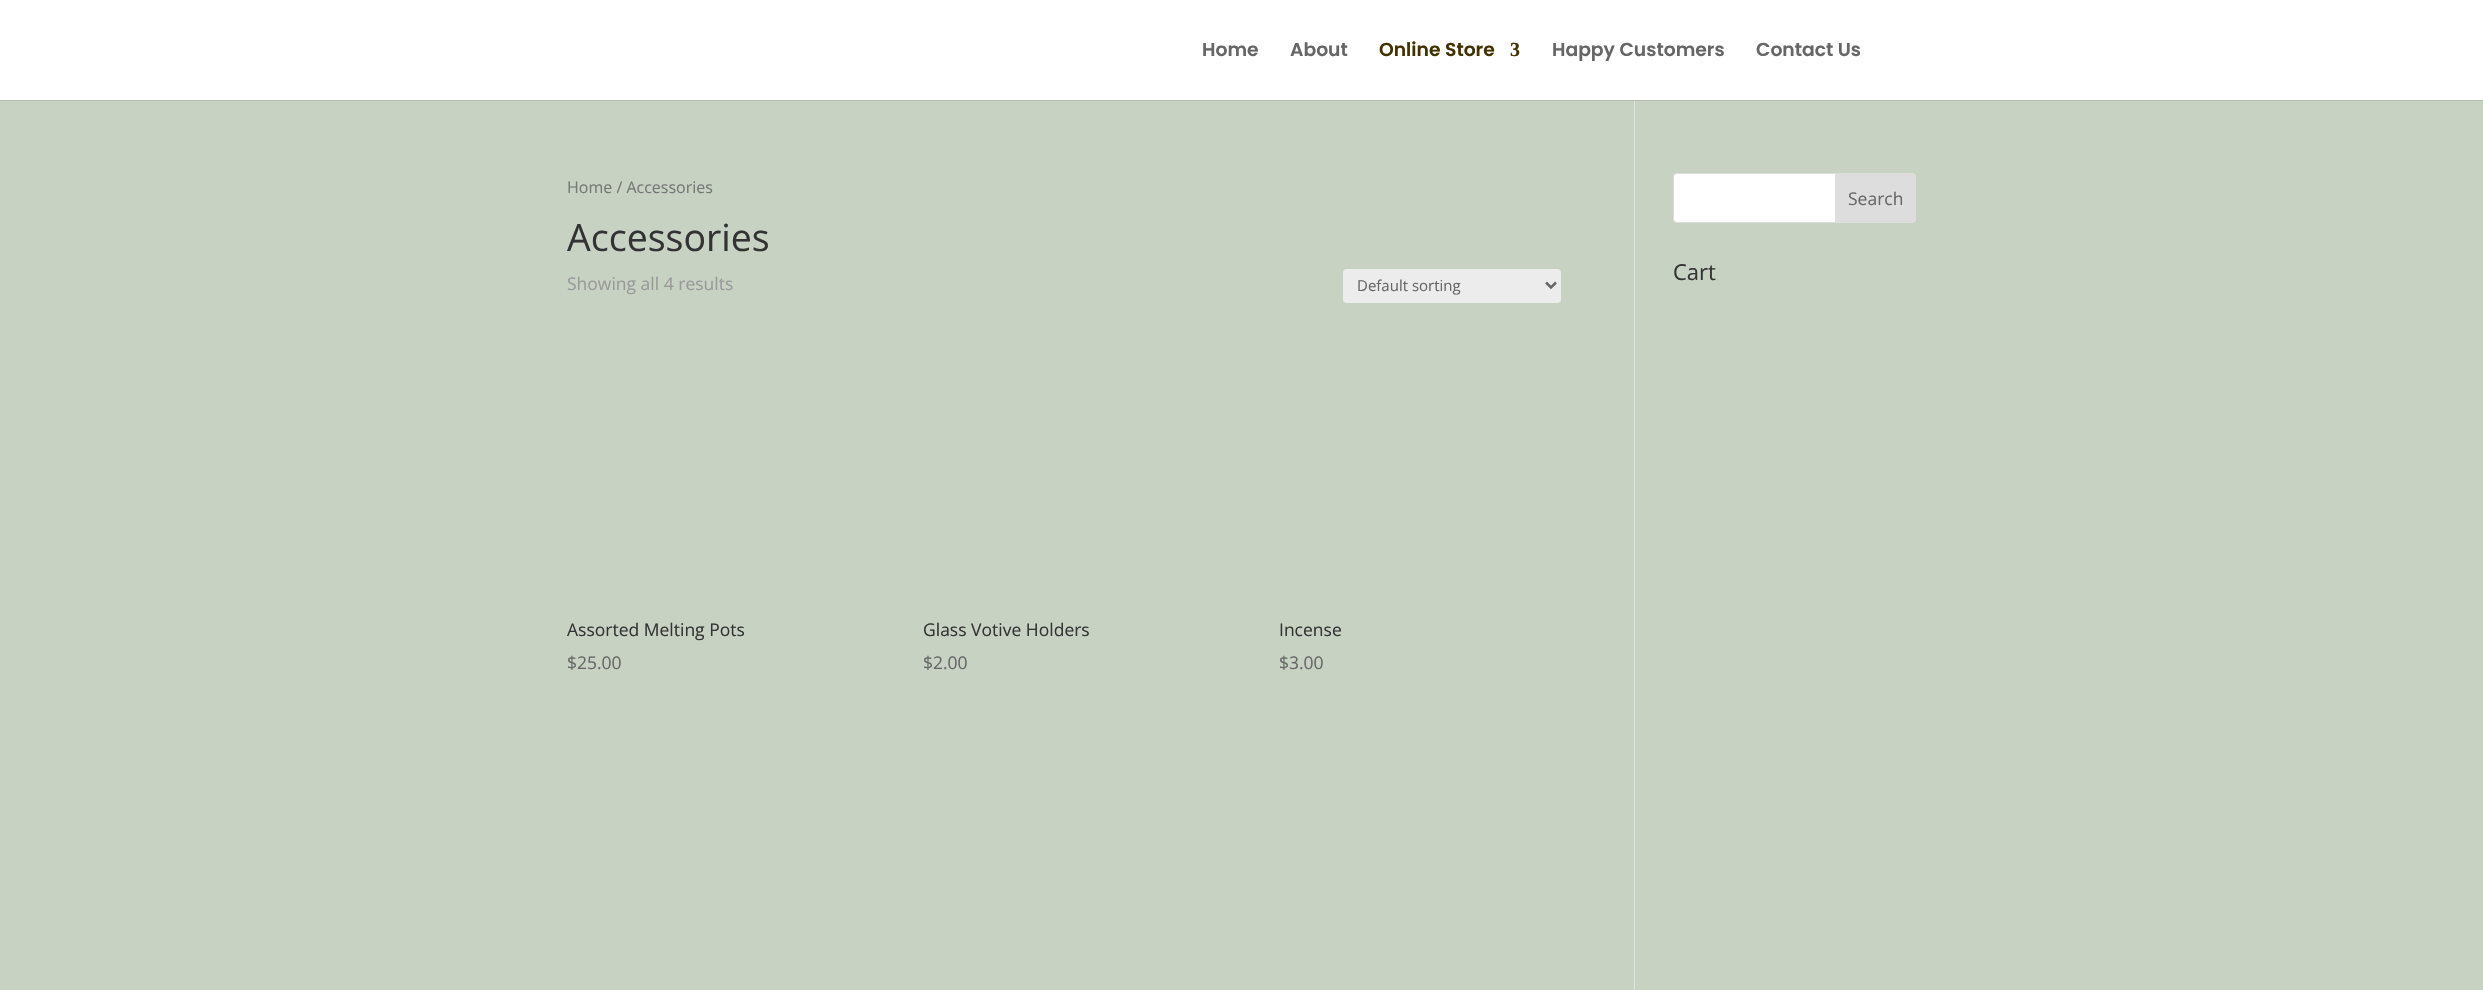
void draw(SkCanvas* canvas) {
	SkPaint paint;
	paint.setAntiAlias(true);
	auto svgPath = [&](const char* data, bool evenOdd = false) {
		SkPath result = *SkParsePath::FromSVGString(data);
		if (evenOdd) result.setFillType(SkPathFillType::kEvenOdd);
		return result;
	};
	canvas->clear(0xffc7d2c2);
	paint.setColor(0xffe2e2e2);
	canvas->drawRect(SkRect::MakeXYWH(1634, 100, 1, 890), paint);
	paint.setColor(0x1a000000);
	canvas->drawPath(svgPath("M0 100V101H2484V1V100Z"), paint);
	paint.setColor(0xffffffff);
	canvas->drawRect(SkRect::MakeXYWH(0, 0, 2483, 100), paint);
	SkFont f1(fontMgr->matchFamilyStyle("Poppins", SkFontStyle(600, SkFontStyle::kNormal_Width, SkFontStyle::kUpright_Slant)), 18.75);
	f1.setSubpixel(true);
	paint.setColor(0xff666666);
	canvas->drawString("Home", 1202, 56, f1, paint);
	canvas->drawString("About", 1290, 56, f1, paint);
	paint.setColor(0xff423200);
	canvas->drawString("Online Store", 1379, 56, f1, paint);
	SkFont f2(fontMgr->matchFamilyStyle("Liberation Serif", SkFontStyle::Bold()), 20);
	f2.setSubpixel(true);
	canvas->drawString("3", 1510, 56, f2, paint);
	paint.setColor(0xff666666);
	canvas->drawString("Happy Customers", 1552, 56, f1, paint);
	canvas->drawString("Contact Us", 1756, 56, f1, paint);
	SkFont f3(fontMgr->matchFamilyStyle("Open Sans", SkFontStyle::Normal()), 16);
	f3.setSubpixel(true);
	paint.setColor(0xff767676);
	canvas->drawString("Home / Accessories", 567, 193, f3, paint);
	SkFont f4(fontMgr->matchFamilyStyle("Open Sans", SkFontStyle::Normal()), 37.5);
	f4.setSubpixel(true);
	paint.setColor(0xff333333);
	canvas->drawString("Accessories", 567, 251, f4, paint);
	SkFont f5(fontMgr->matchFamilyStyle("Open Sans", SkFontStyle::Normal()), 17.5);
	f5.setSubpixel(true);
	paint.setColor(0xff999999);
	canvas->drawString("Showing all 4 results", 567, 290, f5, paint);
	paint.setColor(0xffececec);
	canvas->drawRoundRect(SkRect::MakeXYWH(1343, 269, 218, 34), 4, 4, paint);
	paint.setStroke(true);
	paint.setStrokeWidth(2.5);
	paint.setColor(0xff666666);
	canvas->drawPath(svgPath("M1546 282.5L1551 287.5L1556 282.5"), paint);
	SkFont f6(fontMgr->matchFamilyStyle("Open Sans", SkFontStyle::Normal()), 15);
	f6.setSubpixel(true);
	paint.setStroke(false);
	canvas->drawString("Default sorting", 1357, 291, f6, paint);
	paint.setColor(0xff333333);
	canvas->drawString("Assorted Melting Pots", 567, 636, f5, paint);
	paint.setColor(0xff666666);
	canvas->drawString("$25.00", 567, 669, f5, paint);
	paint.setColor(0xff333333);
	canvas->drawString("Glass Votive Holders", 923, 636, f5, paint);
	paint.setColor(0xff666666);
	canvas->drawString("$2.00", 923, 669, f5, paint);
	paint.setColor(0xff333333);
	canvas->drawString("Incense", 1279, 636, f5, paint);
	paint.setColor(0xff666666);
	canvas->drawString("$3.00", 1279, 669, f5, paint);
	paint.setColor(0xffffffff);
	canvas->drawRoundRect(SkRect::MakeXYWH(1673.5, 173.5, 242, 49), 3.5, 3.5, paint);
	paint.setStroke(true);
	paint.setStrokeWidth(1);
	paint.setColor(0xffdddddd);
	canvas->drawRoundRect(SkRect::MakeXYWH(1673.5, 173.5, 242, 49), 3.5, 3.5, paint);
	paint.setStroke(false);
	canvas->drawPath(svgPath("M1835 173H1912C1914 173 1916 175 1916 177V219C1916 221 1914 223 1912 223H1835Z"), paint);
	paint.setColor(0xff666666);
	canvas->drawString("Search", 1848, 205, f5, paint);
	SkFont f7(fontMgr->matchFamilyStyle("Open Sans", SkFontStyle::Normal()), 22);
	f7.setSubpixel(true);
	paint.setColor(0xff333333);
	canvas->drawString("Cart", 1673, 280, f7, paint);
}
